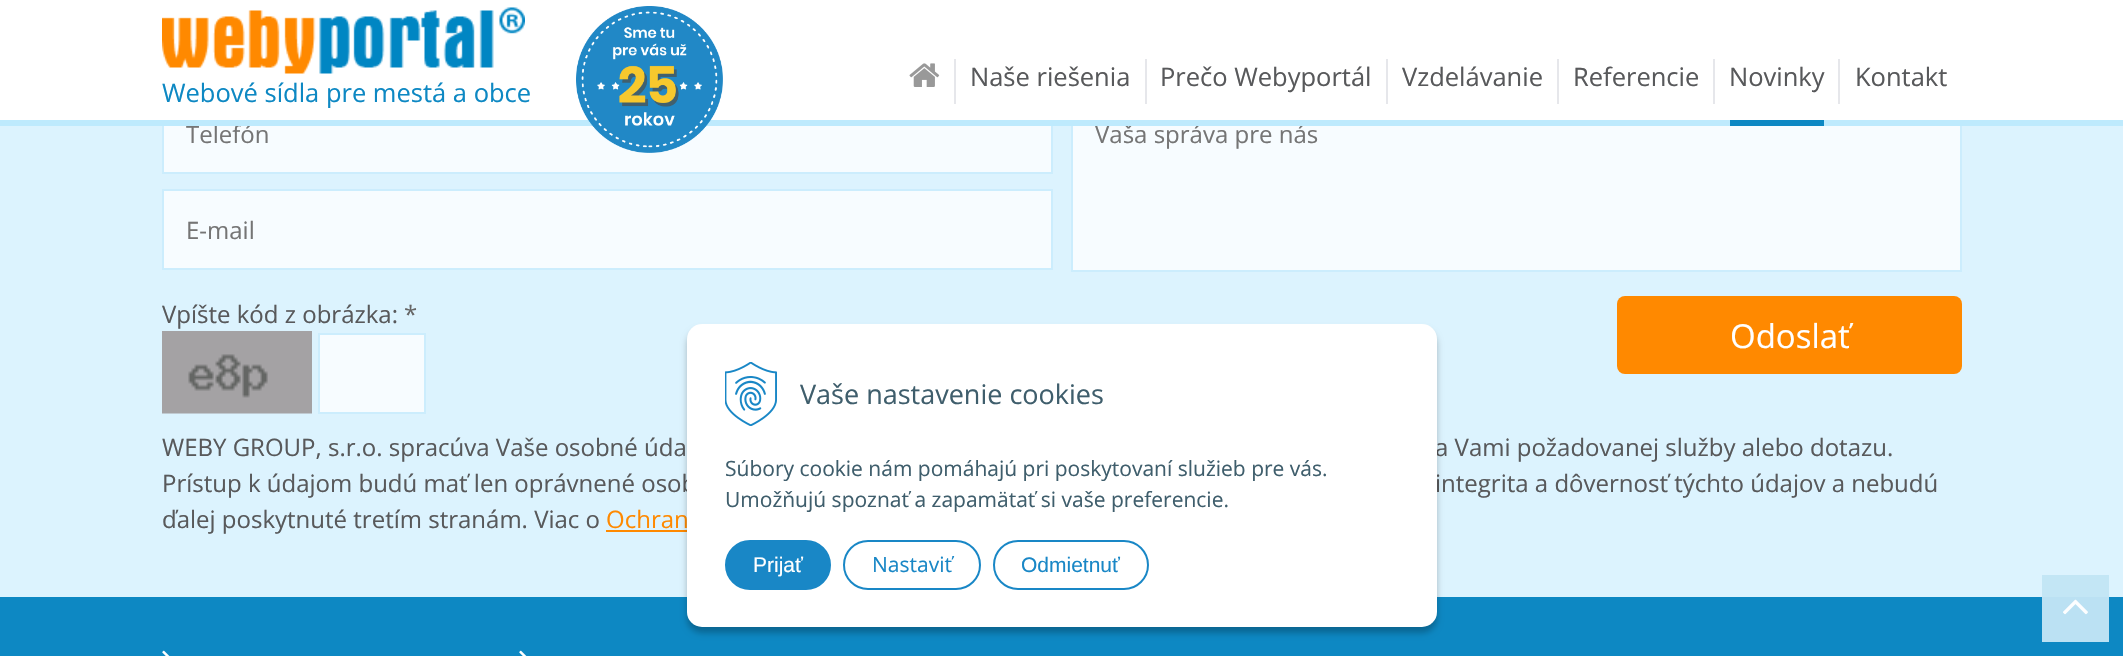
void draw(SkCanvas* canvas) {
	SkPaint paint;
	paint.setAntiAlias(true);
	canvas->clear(0xffdcf3fe);
	paint.setColor(0xffc3e6f5);
	canvas->drawRect(SkRect::MakeXYWH(2042, 575, 67, 22), paint);
	paint.setColor(0xfff7fcff);
	canvas->drawRect(SkRect::MakeXYWH(164, 126, 887, 46), paint);
	paint.setStroke(true);
	paint.setStrokeWidth(2);
	paint.setColor(0xffccedfd);
	canvas->drawRect(SkRect::MakeXYWH(163, 94, 889, 79), paint);
	paint.setStroke(false);
	paint.setColor(0xfff7fcff);
	canvas->drawRect(SkRect::MakeXYWH(1073, 126, 887, 144), paint);
	paint.setStroke(true);
	paint.setColor(0xffccedfd);
	canvas->drawRect(SkRect::MakeXYWH(1072, 94, 889, 177), paint);
	paint.setStroke(false);
	paint.setColor(0xffffffff);
	canvas->drawRect(SkRect::MakeXYWH(0, 0, 2123, 120), paint);
	SkFont f1(fontMgr->matchFamilyStyle("Open Sans", SkFontStyle::Normal()), 24);
	f1.setSubpixel(true);
	paint.setColor(0xff757575);
	canvas->drawString("Telefón", 186, 143, f1, paint);
	canvas->drawString("Vaša správa pre nás", 1095, 143, f1, paint);
	paint.setColor(0xffbeeafd);
	canvas->drawRect(SkRect::MakeXYWH(0, 120, 2123, 6), paint);
	canvas->drawImageRect(SkImages::DeferredFromEncodedData(SkData::MakeFromFileName("img1.png")), SkRect::MakeXYWH(162, 7, 363, 67), SkSamplingOptions());
	SkFont f2(fontMgr->matchFamilyStyle("Open Sans", SkFontStyle::Normal()), 25.5);
	f2.setSubpixel(true);
	paint.setColor(0xff0d88c3);
	canvas->drawString("Webové sídla pre mestá a obce", 162, 102, f2, paint);
	canvas->drawImageRect(SkImages::DeferredFromEncodedData(SkData::MakeFromFileName("img2.png")), SkRect::MakeXYWH(576, 6, 147, 147), SkSamplingOptions());
	canvas->drawImageRect(SkImages::DeferredFromEncodedData(SkData::MakeFromFileName("img3.png")), SkRect::MakeXYWH(909, 63, 31, 24), SkSamplingOptions());
	paint.setColor(0xffe6e7eb);
	canvas->drawRect(SkRect::MakeXYWH(954, 59, 2, 45), paint);
	paint.setColor(0xff58595b);
	canvas->drawString("Naše riešenia", 970, 86, f2, paint);
	paint.setColor(0xffe6e7eb);
	canvas->drawRect(SkRect::MakeXYWH(1145, 59, 2, 45), paint);
	paint.setColor(0xff58595b);
	canvas->drawString("Prečo Webyportál", 1160, 86, f2, paint);
	paint.setColor(0xffe6e7eb);
	canvas->drawRect(SkRect::MakeXYWH(1386, 59, 2, 45), paint);
	paint.setColor(0xff58595b);
	canvas->drawString("Vzdelávanie", 1402, 86, f2, paint);
	paint.setColor(0xffe6e7eb);
	canvas->drawRect(SkRect::MakeXYWH(1557, 59, 2, 45), paint);
	paint.setColor(0xff58595b);
	canvas->drawString("Referencie", 1573, 86, f2, paint);
	paint.setColor(0xffe6e7eb);
	canvas->drawRect(SkRect::MakeXYWH(1713, 59, 2, 45), paint);
	paint.setColor(0xff0d88c3);
	canvas->drawRect(SkRect::MakeXYWH(1730, 120, 94, 6), paint);
	paint.setColor(0xff58595b);
	canvas->drawString("Novinky", 1729, 86, f2, paint);
	paint.setColor(0xffe6e7eb);
	canvas->drawRect(SkRect::MakeXYWH(1838, 59, 2, 45), paint);
	paint.setColor(0xff58595b);
	canvas->drawString("Kontakt", 1855, 86, f2, paint);
	paint.setColor(0xfff7fcff);
	canvas->drawRect(SkRect::MakeXYWH(163, 190, 889, 79), paint);
	paint.setStroke(true);
	paint.setColor(0xffccedfd);
	canvas->drawRect(SkRect::MakeXYWH(163, 190, 889, 79), paint);
	paint.setStroke(false);
	paint.setColor(0xff757575);
	canvas->drawString("E-mail", 186, 239, f1, paint);
	paint.setColor(0xff58595b);
	canvas->drawString("Vpíšte kód z obrázka:", 162, 323, f1, paint);
	paint.setColor(0xff666666);
	canvas->drawString("*", 404, 323, f1, paint);
	canvas->drawImageRect(SkImages::DeferredFromEncodedData(SkData::MakeFromFileName("img4.png")), SkRect::MakeXYWH(162, 331, 150, 83), SkSamplingOptions());
	paint.setColor(0xfff7fcff);
	canvas->drawRect(SkRect::MakeXYWH(319, 334, 106, 79), paint);
	paint.setStroke(true);
	paint.setColor(0xffccedfd);
	canvas->drawRect(SkRect::MakeXYWH(319, 334, 106, 79), paint);
	paint.setStroke(false);
	paint.setColor(0xffff8900);
	canvas->drawRoundRect(SkRect::MakeXYWH(1617, 296, 345, 78), 8, 8, paint);
	SkFont f3(fontMgr->matchFamilyStyle("Open Sans", SkFontStyle::Normal()), 33);
	f3.setSubpixel(true);
	paint.setColor(0xffffffff);
	canvas->drawString("Odoslať", 1730, 348, f3, paint);
	paint.setColor(0xff58595b);
	canvas->drawString("WEBY GROUP, s.r.o. spracúva Vaše osobné úda", 162, 456, f1, paint);
	canvas->drawString("a Vami požadovanej služby alebo dotazu.", 1435, 456, f1, paint);
	canvas->drawString("Prístup k údajom budú mať len oprávnené osob", 162, 492, f1, paint);
	canvas->drawString("integrita a dôvernosť týchto údajov a nebudú", 1435, 492, f1, paint);
	canvas->drawString("ďalej poskytnuté tretím stranám. Viac o", 162, 528, f1, paint);
	paint.setColor(0xffff8900);
	canvas->drawString("Ochran", 606, 528, f1, paint);
	canvas->drawRect(SkRect::MakeXYWH(606, 530, 81, 2), paint);
	paint.setColor(0xff0d88c3);
	canvas->drawRect(SkRect::MakeXYWH(0, 597, 2123, 59), paint);
	paint.setColor(0xffbbe1f3);
	canvas->drawRect(SkRect::MakeXYWH(2042, 597, 67, 45), paint);
	canvas->drawImageRect(SkImages::DeferredFromEncodedData(SkData::MakeFromFileName("img5.png")), SkRect::MakeXYWH(162, 650, 8, 6), SkSamplingOptions());
	canvas->drawImageRect(SkImages::DeferredFromEncodedData(SkData::MakeFromFileName("img5.png")), SkRect::MakeXYWH(519, 650, 8, 6), SkSamplingOptions());
	canvas->drawImageRect(SkImages::DeferredFromEncodedData(SkData::MakeFromFileName("img6.png")), SkRect::MakeXYWH(2063, 599, 25, 16), SkSamplingOptions());
	paint.setColor(0x40000000);
	paint.setMaskFilter(SkMaskFilter::MakeBlur(kNormal_SkBlurStyle, 3));
	canvas->drawRoundRect(SkRect::MakeXYWH(687, 330, 750, 303), 15, 15, paint);
	paint.setMaskFilter(nullptr);
	paint.setColor(0xffffffff);
	canvas->drawRoundRect(SkRect::MakeXYWH(687, 324, 750, 303), 15, 15, paint);
	canvas->drawImageRect(SkImages::DeferredFromEncodedData(SkData::MakeFromFileName("img7.png")), SkRect::MakeXYWH(725, 362, 52, 64), SkSamplingOptions());
	SkFont f4(fontMgr->matchFamilyStyle("Open Sans", SkFontStyle::Normal()), 27);
	f4.setSubpixel(true);
	paint.setColor(0xff3f5e6c);
	canvas->drawString("Vaše nastavenie cookies", 800, 404, f4, paint);
	SkFont f5(fontMgr->matchFamilyStyle("Open Sans", SkFontStyle::Normal()), 21);
	f5.setSubpixel(true);
	canvas->drawString("Súbory cookie nám pomáhajú pri poskytovaní služieb pre vás.", 725, 476, f5, paint);
	canvas->drawString("Umožňujú spoznať a zapamätať si vaše preferencie.", 725, 507, f5, paint);
	paint.setColor(0xff1987c6);
	canvas->drawRoundRect(SkRect::MakeXYWH(726, 541, 104, 48), 24, 24, paint);
	paint.setStroke(true);
	canvas->drawRoundRect(SkRect::MakeXYWH(726, 541, 104, 48), 24, 24, paint);
	SkFont f6(fontMgr->matchFamilyStyle("Liberation Sans", SkFontStyle::Normal()), 21);
	f6.setSubpixel(true);
	paint.setStroke(false);
	paint.setColor(0xffffffff);
	canvas->drawString("Prijať", 753, 572, f6, paint);
	paint.setStroke(true);
	paint.setColor(0xff1987c6);
	canvas->drawRoundRect(SkRect::MakeXYWH(844, 541, 136, 48), 24, 24, paint);
	paint.setStroke(false);
	canvas->drawString("Nastaviť", 872, 572, f5, paint);
	paint.setStroke(true);
	canvas->drawRoundRect(SkRect::MakeXYWH(994, 541, 154, 48), 24, 24, paint);
	paint.setStroke(false);
	canvas->drawString("Odmietnuť", 1021, 572, f6, paint);
}
